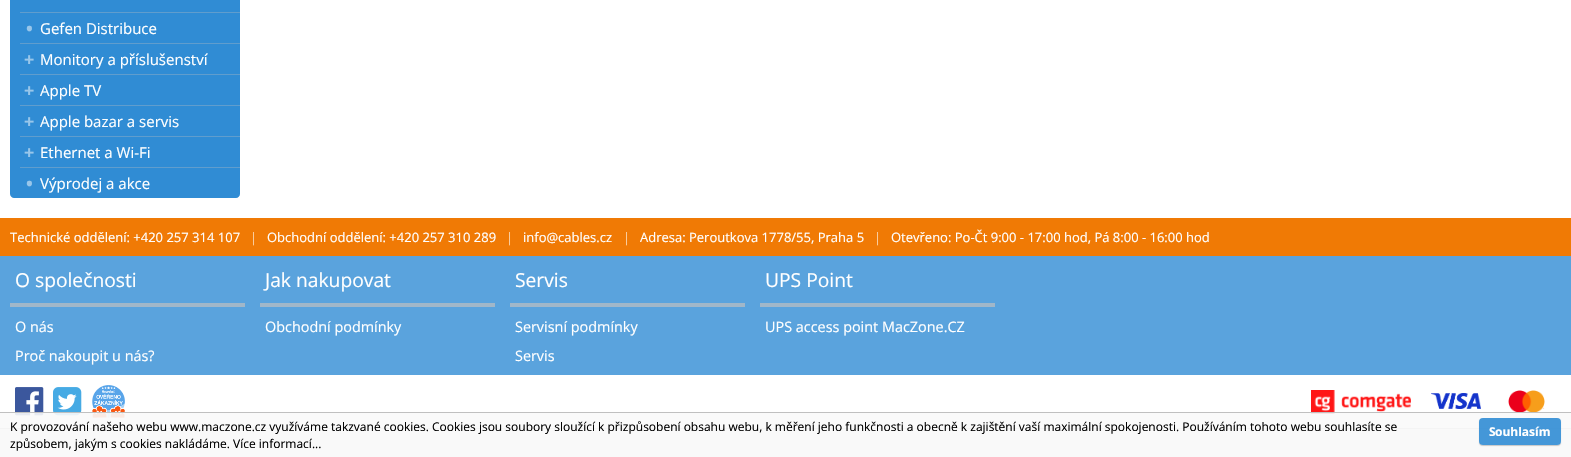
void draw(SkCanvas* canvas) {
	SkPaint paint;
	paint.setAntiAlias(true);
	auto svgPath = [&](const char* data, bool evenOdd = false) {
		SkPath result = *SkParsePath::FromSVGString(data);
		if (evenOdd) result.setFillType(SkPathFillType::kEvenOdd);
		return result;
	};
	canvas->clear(0xffffffff);
	paint.setColor(0xff308cd4);
	canvas->drawPath(svgPath("M10-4H240V194C240 196 238 198 236 198H14C12 198 10 196 10 194Z"), paint);
	paint.setColor(0xff609dcd);
	canvas->drawRect(SkRect::MakeXYWH(20, 12, 220, 1), paint);
	canvas->drawRect(SkRect::MakeXYWH(20, 43, 220, 1), paint);
	SkFont f1(fontMgr->matchFamilyStyle("Open Sans", SkFontStyle::Bold()), 18);
	f1.setSubpixel(true);
	paint.setColor(0xff98c6ea);
	canvas->drawString("•", 26, 35, f1, paint);
	SkFont f2(fontMgr->matchFamilyStyle("Open Sans", SkFontStyle::Normal()), 15);
	f2.setSubpixel(true);
	paint.setColor(0xffffffff);
	canvas->drawString("Gefen Distribuce", 40, 34, f2, paint);
	paint.setColor(0xff609dcd);
	canvas->drawRect(SkRect::MakeXYWH(20, 74, 220, 1), paint);
	paint.setColor(0xff98c6ea);
	canvas->drawString("+", 24, 66, f1, paint);
	paint.setColor(0xffffffff);
	canvas->drawString("Monitory a příslušenství", 40, 65, f2, paint);
	paint.setColor(0xff609dcd);
	canvas->drawRect(SkRect::MakeXYWH(20, 105, 220, 1), paint);
	paint.setColor(0xff98c6ea);
	canvas->drawString("+", 24, 97, f1, paint);
	paint.setColor(0xffffffff);
	canvas->drawString("Apple TV", 40, 96, f2, paint);
	paint.setColor(0xff609dcd);
	canvas->drawRect(SkRect::MakeXYWH(20, 136, 220, 1), paint);
	paint.setColor(0xff98c6ea);
	canvas->drawString("+", 24, 128, f1, paint);
	paint.setColor(0xffffffff);
	canvas->drawString("Apple bazar a servis", 40, 127, f2, paint);
	paint.setColor(0xff609dcd);
	canvas->drawRect(SkRect::MakeXYWH(20, 167, 220, 1), paint);
	paint.setColor(0xff98c6ea);
	canvas->drawString("+", 24, 159, f1, paint);
	paint.setColor(0xffffffff);
	canvas->drawString("Ethernet a Wi-Fi", 40, 158, f2, paint);
	paint.setColor(0xff98c6ea);
	canvas->drawString("•", 26, 190, f1, paint);
	paint.setColor(0xffffffff);
	canvas->drawString("Výprodej a akce", 40, 189, f2, paint);
	paint.setColor(0xfff07a05);
	canvas->drawRect(SkRect::MakeXYWH(0, 218, 1571, 38), paint);
	SkFont f3(fontMgr->matchFamilyStyle("Open Sans", SkFontStyle::Normal()), 13);
	f3.setSubpixel(true);
	paint.setColor(0xffffffff);
	canvas->drawString("Technické oddělení: +420 257 314 107", 10, 242, f3, paint);
	paint.setColor(0xfffad3ac);
	canvas->drawString("|", 250, 242, f3, paint);
	paint.setColor(0xffffffff);
	canvas->drawString("Obchodní oddělení: +420 257 310 289", 267, 242, f3, paint);
	paint.setColor(0xfffad3ac);
	canvas->drawString("|", 506, 242, f3, paint);
	paint.setColor(0xffffffff);
	canvas->drawString("info@cables.cz", 523, 242, f3, paint);
	paint.setColor(0xfffad3ac);
	canvas->drawString("|", 623, 242, f3, paint);
	paint.setColor(0xffffffff);
	canvas->drawString("Adresa: Peroutkova 1778/55, Praha 5", 640, 242, f3, paint);
	paint.setColor(0xfffad3ac);
	canvas->drawString("|", 874, 242, f3, paint);
	paint.setColor(0xffffffff);
	canvas->drawString("Otevřeno: Po-Čt 9:00 - 17:00 hod, Pá 8:00 - 16:00 hod", 891, 242, f3, paint);
	paint.setColor(0xff5aa3dd);
	canvas->drawRect(SkRect::MakeXYWH(0, 256, 1571, 119), paint);
	paint.setColor(0xffa1b7c9);
	canvas->drawRect(SkRect::MakeXYWH(10, 303, 235, 4), paint);
	SkFont f4(fontMgr->matchFamilyStyle("Open Sans", SkFontStyle::Normal()), 19.25);
	f4.setSubpixel(true);
	paint.setColor(0xffffffff);
	canvas->drawString("O společnosti", 15, 287, f4, paint);
	SkFont f5(fontMgr->matchFamilyStyle("Open Sans", SkFontStyle::Normal()), 14.4);
	f5.setSubpixel(true);
	canvas->drawString("O nás", 15, 332, f5, paint);
	canvas->drawString("Proč nakoupit u nás?", 15, 361, f5, paint);
	paint.setColor(0xffa1b7c9);
	canvas->drawRect(SkRect::MakeXYWH(260, 303, 235, 4), paint);
	paint.setColor(0xffffffff);
	canvas->drawString("Jak nakupovat", 265, 287, f4, paint);
	canvas->drawString("Obchodní podmínky", 265, 332, f5, paint);
	paint.setColor(0xffa1b7c9);
	canvas->drawRect(SkRect::MakeXYWH(510, 303, 235, 4), paint);
	paint.setColor(0xffffffff);
	canvas->drawString("Servis", 515, 287, f4, paint);
	canvas->drawString("Servisní podmínky", 515, 332, f5, paint);
	canvas->drawString("Servis", 515, 361, f5, paint);
	paint.setColor(0xffa1b7c9);
	canvas->drawRect(SkRect::MakeXYWH(760, 303, 235, 4), paint);
	paint.setColor(0xffffffff);
	canvas->drawString("UPS Point", 765, 287, f4, paint);
	canvas->drawString("UPS access point MacZone.CZ", 765, 332, f5, paint);
	canvas->drawImageRect(SkImages::DeferredFromEncodedData(SkData::MakeFromFileName("img1.png")), SkRect::MakeXYWH(15, 387, 29, 29), SkSamplingOptions());
	canvas->drawImageRect(SkImages::DeferredFromEncodedData(SkData::MakeFromFileName("img2.png")), SkRect::MakeXYWH(53, 387, 29, 29), SkSamplingOptions());
	canvas->drawImageRect(SkImages::DeferredFromEncodedData(SkData::MakeFromFileName("img3.png")), SkRect::MakeXYWH(92, 385, 33, 33), SkSamplingOptions());
	canvas->drawImageRect(SkImages::DeferredFromEncodedData(SkData::MakeFromFileName("img4.png")), SkRect::MakeXYWH(1311, 390, 100, 24), SkSamplingOptions());
	canvas->drawImageRect(SkImages::DeferredFromEncodedData(SkData::MakeFromFileName("img5.png")), SkRect::MakeXYWH(1431, 393, 50, 16), SkSamplingOptions());
	canvas->drawImageRect(SkImages::DeferredFromEncodedData(SkData::MakeFromFileName("img6.png")), SkRect::MakeXYWH(1508, 390, 37, 22), SkSamplingOptions());
	paint.setColor(0xfff5f5f5);
	canvas->drawRect(SkRect::MakeXYWH(0, 429, 1571, 28), paint);
	paint.setColor(0xffc0c0c0);
	canvas->drawRect(SkRect::MakeXYWH(0, 428, 1571, 1), paint);
	paint.setColor(0xe6fafafa);
	canvas->drawRect(SkRect::MakeXYWH(0, 413, 1571, 44), paint);
	paint.setColor(0xffc0c0c0);
	canvas->drawRect(SkRect::MakeXYWH(0, 412, 1571, 1), paint);
	SkFont f6(fontMgr->matchFamilyStyle("Open Sans", SkFontStyle::Normal()), 12);
	f6.setSubpixel(true);
	paint.setColor(0xff000000);
	canvas->drawString("K provozování našeho webu www.maczone.cz využíváme takzvané cookies. Cookies jsou soubory sloužící k přizpůsobení obsahu webu, k měření jeho funkčnosti a obecně k zajištění vaší maximální spokojenosti. Používáním tohoto webu souhlasíte se", 10, 431, f6, paint);
	canvas->drawString("způsobem, jakým s cookies nakládáme.", 10, 448, f6, paint);
	canvas->drawString("Více informací...", 233, 448, f6, paint);
	canvas->save();
	canvas->clipPath(svgPath("M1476 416H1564V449H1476ZM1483 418H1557C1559 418 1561 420 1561 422V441C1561 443 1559 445 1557 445H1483C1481 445 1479 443 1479 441V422C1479 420 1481 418 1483 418Z", true), true);
	paint.setColor(0x33000000);
	paint.setMaskFilter(SkMaskFilter::MakeBlur(kNormal_SkBlurStyle, 0.5));
	canvas->drawRoundRect(SkRect::MakeXYWH(1479, 419, 82, 27), 4, 4, paint);
	paint.setMaskFilter(nullptr);
	canvas->restore();
	paint.setColor(0xe6308cd4);
	canvas->drawRoundRect(SkRect::MakeXYWH(1479, 418, 82, 27), 4, 4, paint);
	SkFont f7(fontMgr->matchFamilyStyle("Noto Sans", SkFontStyle::Bold()), 12);
	f7.setSubpixel(true);
	paint.setColor(0xffffffff);
	canvas->drawString("S", 1489, 436, f7, paint);
	SkFont f8(fontMgr->matchFamilyStyle("Open Sans", SkFontStyle::Bold()), 12);
	f8.setSubpixel(true);
	canvas->drawString("ouhlasím", 1495, 436, f8, paint);
}
